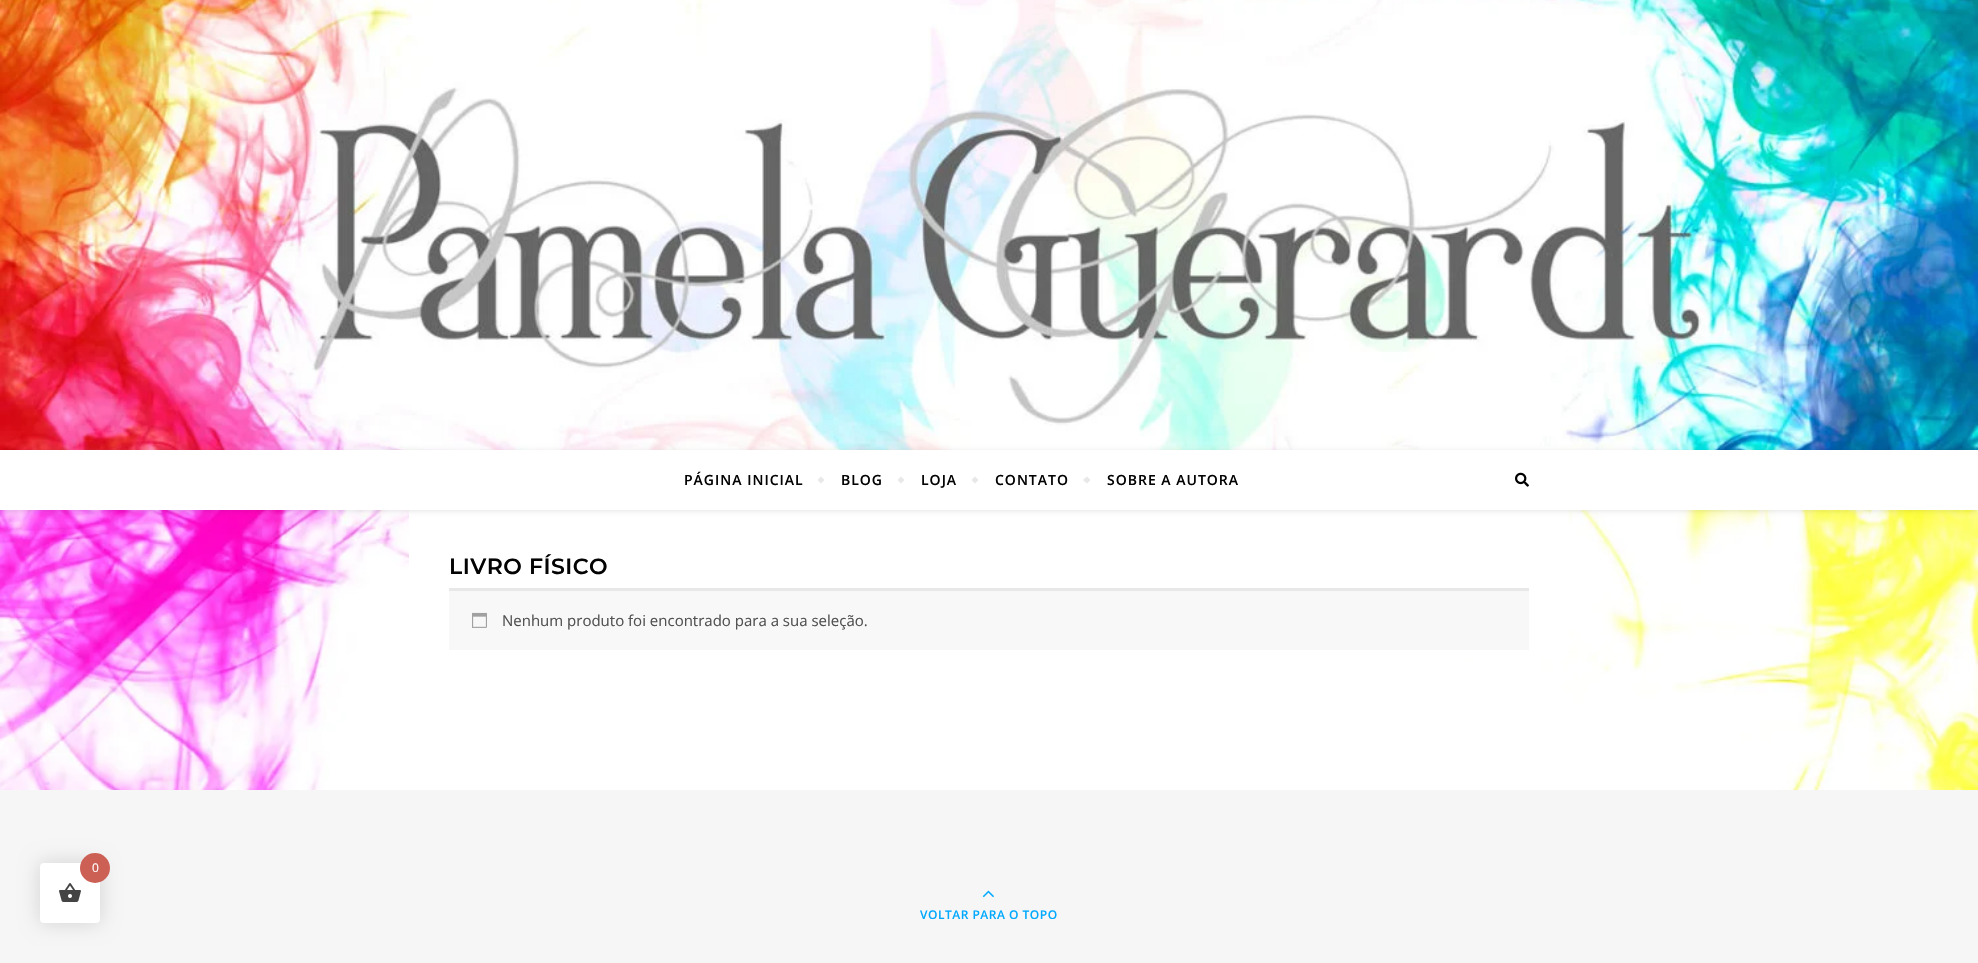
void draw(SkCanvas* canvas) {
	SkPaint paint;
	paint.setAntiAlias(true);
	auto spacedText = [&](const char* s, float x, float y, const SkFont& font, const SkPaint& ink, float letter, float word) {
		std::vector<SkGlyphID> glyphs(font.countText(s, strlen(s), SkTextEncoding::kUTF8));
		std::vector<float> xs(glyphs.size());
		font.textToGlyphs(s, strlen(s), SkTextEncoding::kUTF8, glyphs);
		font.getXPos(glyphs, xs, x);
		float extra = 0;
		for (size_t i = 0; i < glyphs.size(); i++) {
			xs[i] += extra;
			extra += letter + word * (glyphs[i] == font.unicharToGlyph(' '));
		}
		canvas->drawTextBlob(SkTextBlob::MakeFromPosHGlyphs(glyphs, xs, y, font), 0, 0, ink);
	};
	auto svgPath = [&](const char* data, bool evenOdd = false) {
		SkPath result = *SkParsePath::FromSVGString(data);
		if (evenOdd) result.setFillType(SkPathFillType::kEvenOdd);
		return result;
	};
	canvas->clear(0xffffffff);
	canvas->drawImageRect(SkImages::DeferredFromEncodedData(SkData::MakeFromFileName("img1.png")), SkRect::MakeXYWH(0, 510, 1978, 280), SkSamplingOptions());
	paint.setColor(0xfff6f6f6);
	canvas->drawRect(SkRect::MakeXYWH(0, 790, 1978, 173), paint);
	paint.setColor(0x26000000);
	paint.setMaskFilter(SkMaskFilter::MakeBlur(kNormal_SkBlurStyle, 10));
	canvas->drawRoundRect(SkRect::MakeXYWH(40, 863, 60, 60), 4, 4, paint);
	paint.setMaskFilter(nullptr);
	paint.setColor(0xffffffff);
	canvas->drawRoundRect(SkRect::MakeXYWH(40, 863, 60, 60), 4, 4, paint);
	paint.setColor(0xffcc6055);
	canvas->drawCircle(95, 868, 15, paint);
	SkFont f1(fontMgr->matchFamilyStyle("Open Sans", SkFontStyle::Normal()), 12);
	f1.setSubpixel(true);
	paint.setColor(0xffffffff);
	canvas->drawString("0", 92, 872, f1, paint);
	canvas->drawImageRect(SkImages::DeferredFromEncodedData(SkData::MakeFromFileName("img2.png")), SkRect::MakeXYWH(59, 883, 22, 19), SkSamplingOptions());
	canvas->drawImageRect(SkImages::DeferredFromEncodedData(SkData::MakeFromFileName("img3.png")), SkRect::MakeXYWH(0, 0, 1978, 450), SkSamplingOptions());
	canvas->drawRect(SkRect::MakeXYWH(409, 510, 1160, 148), paint);
	paint.setColor(0x1a000000);
	paint.setMaskFilter(SkMaskFilter::MakeBlur(kNormal_SkBlurStyle, 2.5));
	canvas->drawRect(SkRect::MakeXYWH(0, 451, 1978, 60), paint);
	paint.setMaskFilter(nullptr);
	paint.setColor(0xffffffff);
	canvas->drawRect(SkRect::MakeXYWH(0, 450, 1978, 60), paint);
	SkFont f2(fontMgr->matchFamilyStyle("Open Sans", SkFontStyle(600, SkFontStyle::kNormal_Width, SkFontStyle::kUpright_Slant)), 14);
	f2.setSubpixel(true);
	paint.setColor(0xff030303);
	spacedText("PÁGINA INICIAL", 684, 485, f2, paint, 1, 0);
	paint.setColor(0xffe8e8e8);
	canvas->drawPath(svgPath("M817.5 480L821 476.5L824.5 480L821 483.5Z"), paint);
	paint.setColor(0xff030303);
	spacedText("BLOG", 841, 485, f2, paint, 1, 0);
	paint.setColor(0xffe8e8e8);
	canvas->drawPath(svgPath("M897.5 480L901 476.5L904.5 480L901 483.5Z"), paint);
	paint.setColor(0xff030303);
	spacedText("LOJA", 921, 485, f2, paint, 1, 0);
	paint.setColor(0xffe8e8e8);
	canvas->drawPath(svgPath("M971.5 480L975 476.5L978.5 480L975 483.5Z"), paint);
	paint.setColor(0xff030303);
	spacedText("CONTATO", 995, 485, f2, paint, 1, 0);
	paint.setColor(0xffe8e8e8);
	canvas->drawPath(svgPath("M1083 480L1087 476.5L1090.5 480L1087 483.5Z"), paint);
	paint.setColor(0xff030303);
	spacedText("SOBRE A AUTORA", 1107, 485, f2, paint, 1, 0);
	canvas->drawImageRect(SkImages::DeferredFromEncodedData(SkData::MakeFromFileName("img4.png")), SkRect::MakeXYWH(1515, 472, 14, 15), SkSamplingOptions());
	SkFont f3(fontMgr->matchFamilyStyle("Montserrat", SkFontStyle(600, SkFontStyle::kNormal_Width, SkFontStyle::kUpright_Slant)), 22);
	f3.setSubpixel(true);
	spacedText("LIVRO FÍSICO", 449, 574, f3, paint, 0.5, 0);
	paint.setColor(0xfff8f8f8);
	canvas->drawRect(SkRect::MakeXYWH(449, 591, 1080, 59), paint);
	paint.setColor(0xffe8e8e8);
	canvas->drawRect(SkRect::MakeXYWH(449, 588, 1080, 3), paint);
	canvas->drawImageRect(SkImages::DeferredFromEncodedData(SkData::MakeFromFileName("img5.png")), SkRect::MakeXYWH(472, 612, 15, 16), SkSamplingOptions());
	SkFont f4(fontMgr->matchFamilyStyle("Open Sans", SkFontStyle::Normal()), 15);
	f4.setSubpixel(true);
	paint.setColor(0xff515151);
	canvas->drawString("Nenhum produto foi encontrado para a sua seleção.", 502, 626, f4, paint);
	canvas->drawImageRect(SkImages::DeferredFromEncodedData(SkData::MakeFromFileName("img6.png")), SkRect::MakeXYWH(982, 890, 12, 8), SkSamplingOptions());
	SkFont f5(fontMgr->matchFamilyStyle("Open Sans", SkFontStyle(600, SkFontStyle::kNormal_Width, SkFontStyle::kUpright_Slant)), 12);
	f5.setSubpixel(true);
	paint.setColor(0xff00a9ff);
	spacedText("VOLTAR PARA O TOPO", 920, 919, f5, paint, 0.5, 0);
}
